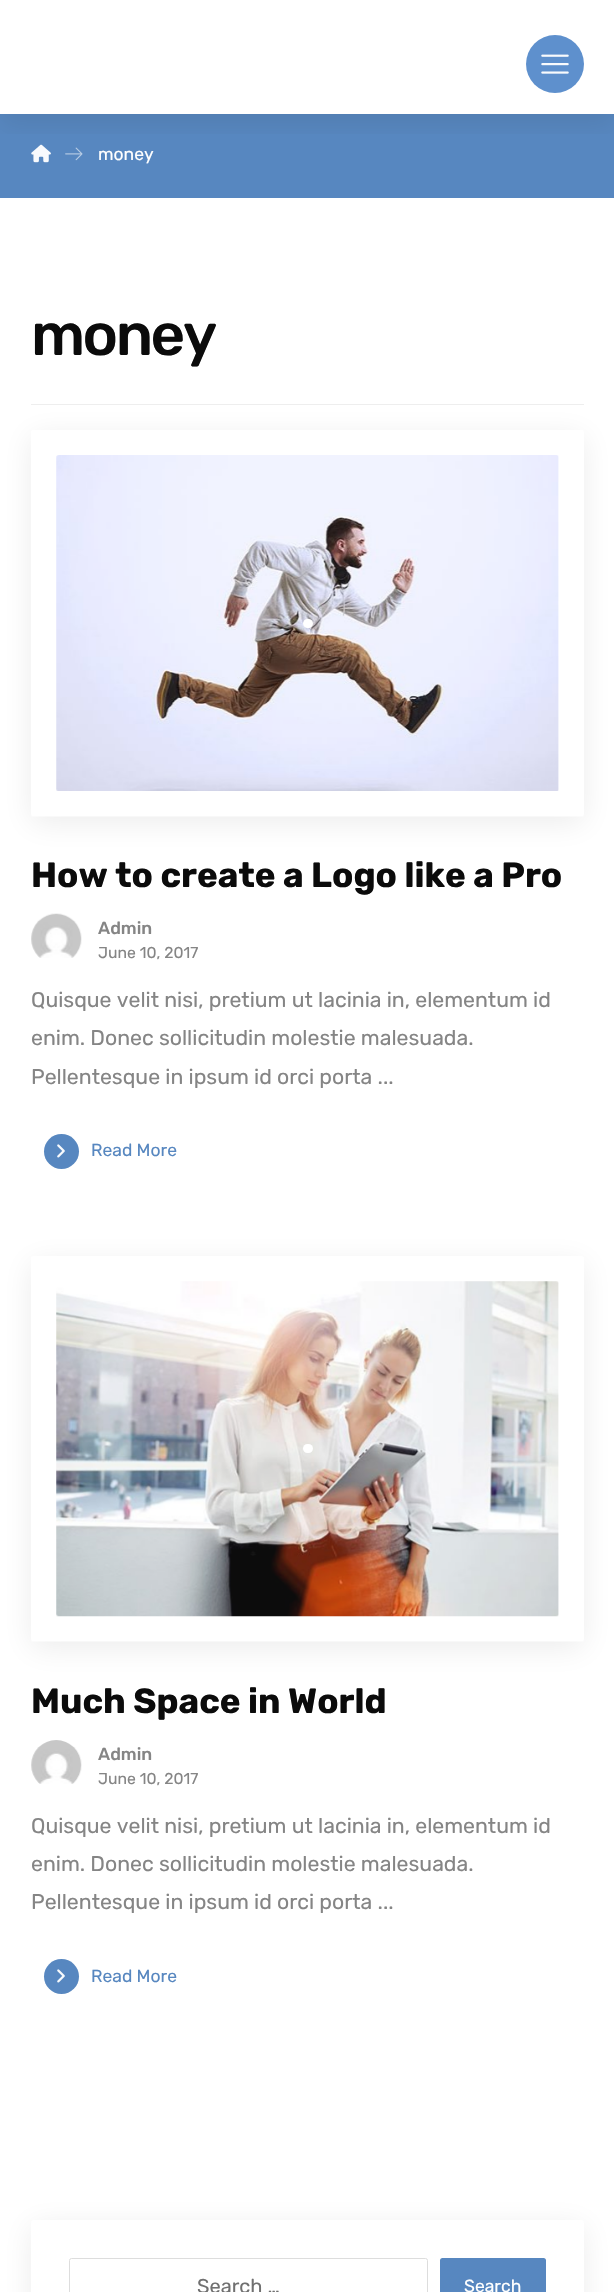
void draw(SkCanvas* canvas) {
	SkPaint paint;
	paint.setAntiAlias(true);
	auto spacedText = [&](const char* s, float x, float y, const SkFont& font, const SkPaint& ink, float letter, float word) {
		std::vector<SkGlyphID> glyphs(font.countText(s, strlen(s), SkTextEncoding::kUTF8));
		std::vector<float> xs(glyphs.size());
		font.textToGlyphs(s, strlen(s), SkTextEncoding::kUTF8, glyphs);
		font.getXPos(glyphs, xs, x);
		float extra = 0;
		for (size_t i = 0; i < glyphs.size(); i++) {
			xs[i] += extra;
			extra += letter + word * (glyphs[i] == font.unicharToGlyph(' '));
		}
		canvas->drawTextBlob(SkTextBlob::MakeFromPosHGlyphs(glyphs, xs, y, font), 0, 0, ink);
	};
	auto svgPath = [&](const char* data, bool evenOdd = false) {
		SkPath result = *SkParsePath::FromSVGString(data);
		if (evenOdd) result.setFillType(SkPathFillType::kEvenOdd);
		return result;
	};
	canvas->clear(0xffffffff);
	paint.setColor(0xff5787c0);
	canvas->drawRect(SkRect::MakeXYWH(0, 114, 614, 84), paint);
	canvas->drawImageRect(SkImages::DeferredFromEncodedData(SkData::MakeFromFileName("img2.png")), SkRect::MakeXYWH(31, 144, 20, 19), SkSamplingOptions());
	canvas->drawImageRect(SkImages::DeferredFromEncodedData(SkData::MakeFromFileName("img3.png")), SkRect::MakeXYWH(65, 147, 18, 14), SkSamplingOptions());
	canvas->save();
	canvas->clipRect(SkRect::MakeXYWH(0, 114, 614, 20));
	paint.setColor(0x140b0b0b);
	paint.setMaskFilter(SkMaskFilter::MakeBlur(kNormal_SkBlurStyle, 12.5));
	canvas->drawRect(SkRect::MakeXYWH(0, 13, 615, 113), paint);
	paint.setMaskFilter(nullptr);
	canvas->restore();
	paint.setColor(0xff5e90cd);
	canvas->drawCircle(555, 64, 29, paint);
	canvas->drawImageRect(SkImages::DeferredFromEncodedData(SkData::MakeFromFileName("img1.png")), SkRect::MakeXYWH(541, 54, 28, 20), SkSamplingOptions());
	SkFont f1(fontMgr->matchFamilyStyle("Rubik", SkFontStyle::Normal()), 17.5);
	f1.setSubpixel(true);
	paint.setColor(0xffffffff);
	canvas->drawString("money", 98, 160, f1, paint);
	paint.setColor(0xffeeeeee);
	canvas->drawRect(SkRect::MakeXYWH(31, 404, 553, 1), paint);
	SkFont f2(fontMgr->matchFamilyStyle("Rubik", SkFontStyle(500, SkFontStyle::kNormal_Width, SkFontStyle::kUpright_Slant)), 60);
	f2.setSubpixel(true);
	paint.setColor(0xff0b0b0b);
	spacedText("money", 31, 355, f2, paint, -2.5, 0);
	canvas->save();
	canvas->clipPath(svgPath("M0 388H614V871H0ZM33.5 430H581.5C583 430 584 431 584 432.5V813.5C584 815 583 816 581.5 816H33.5C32 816 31 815 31 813.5V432.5C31 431 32 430 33.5 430Z", true), true);
	paint.setColor(0x140b0b0b);
	paint.setMaskFilter(SkMaskFilter::MakeBlur(kNormal_SkBlurStyle, 15.5));
	canvas->drawRoundRect(SkRect::MakeXYWH(31, 436, 553, 387), 2.5, 2.5, paint);
	paint.setMaskFilter(nullptr);
	canvas->restore();
	paint.setStroke(true);
	paint.setStrokeWidth(25);
	paint.setColor(0xffffffff);
	canvas->drawPath(svgPath("M44 442.5H571V804H44Z"), paint);
	canvas->drawImageRect(SkImages::DeferredFromEncodedData(SkData::MakeFromFileName("img4.png")), SkRect::MakeXYWH(56, 455, 503, 336), SkSamplingOptions());
	paint.setStroke(false);
	canvas->drawRoundRect(SkRect::MakeXYWH(303, 619, 10, 9), 4.5, 4.5, paint);
	SkFont f3(fontMgr->matchFamilyStyle("Rubik", SkFontStyle::Bold()), 35);
	f3.setSubpixel(true);
	paint.setColor(0xff0b0b0b);
	canvas->drawString("How to create a Logo like a Pro", 31, 887, f3, paint);
	canvas->drawImageRect(SkImages::DeferredFromEncodedData(SkData::MakeFromFileName("img5.png")), SkRect::MakeXYWH(31, 913, 51, 45), SkSamplingOptions());
	SkFont f4(fontMgr->matchFamilyStyle("Rubik", SkFontStyle(500, SkFontStyle::kNormal_Width, SkFontStyle::kUpright_Slant)), 17.5);
	f4.setSubpixel(true);
	paint.setColor(0xff858585);
	canvas->drawString("Admin", 98, 934, f4, paint);
	SkFont f5(fontMgr->matchFamilyStyle("Rubik", SkFontStyle::Normal()), 15.75);
	f5.setSubpixel(true);
	canvas->drawString("June 10, 2017", 98, 958, f5, paint);
	SkFont f6(fontMgr->matchFamilyStyle("Rubik", SkFontStyle::Normal()), 21.25);
	f6.setSubpixel(true);
	canvas->drawString("Quisque velit nisi, pretium ut lacinia in, elementum id", 31, 1007, f6, paint);
	canvas->drawString("enim. Donec sollicitudin molestie malesuada.", 31, 1045, f6, paint);
	canvas->drawString("Pellentesque in ipsum id orci porta ...", 31, 1084, f6, paint);
	paint.setColor(0xff5787c0);
	canvas->drawCircle(61.5, 1151.5, 17.5, paint);
	canvas->drawImageRect(SkImages::DeferredFromEncodedData(SkData::MakeFromFileName("img6.png")), SkRect::MakeXYWH(57, 1144, 8, 14), SkSamplingOptions());
	canvas->drawString("Read More", 91, 1156, f1, paint);
	canvas->save();
	canvas->clipPath(svgPath("M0 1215H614V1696H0ZM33.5 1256H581.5C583 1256 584 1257 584 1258.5V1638.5C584 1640 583 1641 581.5 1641H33.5C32 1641 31 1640 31 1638.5V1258.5C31 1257 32 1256 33.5 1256Z", true), true);
	paint.setColor(0x140b0b0b);
	paint.setMaskFilter(SkMaskFilter::MakeBlur(kNormal_SkBlurStyle, 15.5));
	canvas->drawRoundRect(SkRect::MakeXYWH(31, 1263, 553, 385), 2.5, 2.5, paint);
	paint.setMaskFilter(nullptr);
	canvas->restore();
	paint.setStroke(true);
	paint.setColor(0xffffffff);
	canvas->drawPath(svgPath("M44 1269H571V1629H44Z"), paint);
	canvas->drawImageRect(SkImages::DeferredFromEncodedData(SkData::MakeFromFileName("img7.png")), SkRect::MakeXYWH(56, 1281, 503, 336), SkSamplingOptions());
	paint.setStroke(false);
	canvas->drawRoundRect(SkRect::MakeXYWH(303, 1444, 10, 9), 4.5, 4.5, paint);
	paint.setColor(0xff0b0b0b);
	canvas->drawString("Much Space in World", 31, 1713, f3, paint);
	canvas->drawImageRect(SkImages::DeferredFromEncodedData(SkData::MakeFromFileName("img8.png")), SkRect::MakeXYWH(31, 1740, 51, 44), SkSamplingOptions());
	paint.setColor(0xff858585);
	canvas->drawString("Admin", 98, 1760, f4, paint);
	canvas->drawString("June 10, 2017", 98, 1784, f5, paint);
	canvas->drawString("Quisque velit nisi, pretium ut lacinia in, elementum id", 31, 1833, f6, paint);
	canvas->drawString("enim. Donec sollicitudin molestie malesuada.", 31, 1871, f6, paint);
	canvas->drawString("Pellentesque in ipsum id orci porta ...", 31, 1909, f6, paint);
	paint.setColor(0xff5787c0);
	canvas->drawCircle(61.5, 1976.5, 17.5, paint);
	canvas->drawImageRect(SkImages::DeferredFromEncodedData(SkData::MakeFromFileName("img6.png")), SkRect::MakeXYWH(57, 1969, 8, 14), SkSamplingOptions());
	canvas->drawString("Read More", 91, 1982, f1, paint);
	paint.setColor(0x140b0b0b);
	paint.setMaskFilter(SkMaskFilter::MakeBlur(kNormal_SkBlurStyle, 15.5));
	canvas->drawRoundRect(SkRect::MakeXYWH(31, 2226, 553, 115), 2.5, 2.5, paint);
	paint.setMaskFilter(nullptr);
	paint.setColor(0xffffffff);
	canvas->drawRoundRect(SkRect::MakeXYWH(31, 2220, 553, 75), 2.5, 2.5, paint);
	paint.setStroke(true);
	paint.setStrokeWidth(1);
	paint.setColor(0xffdddddd);
	canvas->drawRoundRect(SkRect::MakeXYWH(69.5, 2258.5, 358, 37), 2, 2, paint);
	SkFont f7(fontMgr->matchFamilyStyle("Rubik", SkFontStyle::Normal()), 20);
	f7.setSubpixel(true);
	paint.setStroke(false);
	paint.setColor(0xff707070);
	canvas->drawString("Search …", 197, 2293, f7, paint);
	paint.setColor(0xff5787c0);
	canvas->drawRoundRect(SkRect::MakeXYWH(440, 2258, 106, 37), 2.5, 2.5, paint);
	paint.setColor(0xffffffff);
	canvas->drawString("Search", 464, 2292, f1, paint);
}
